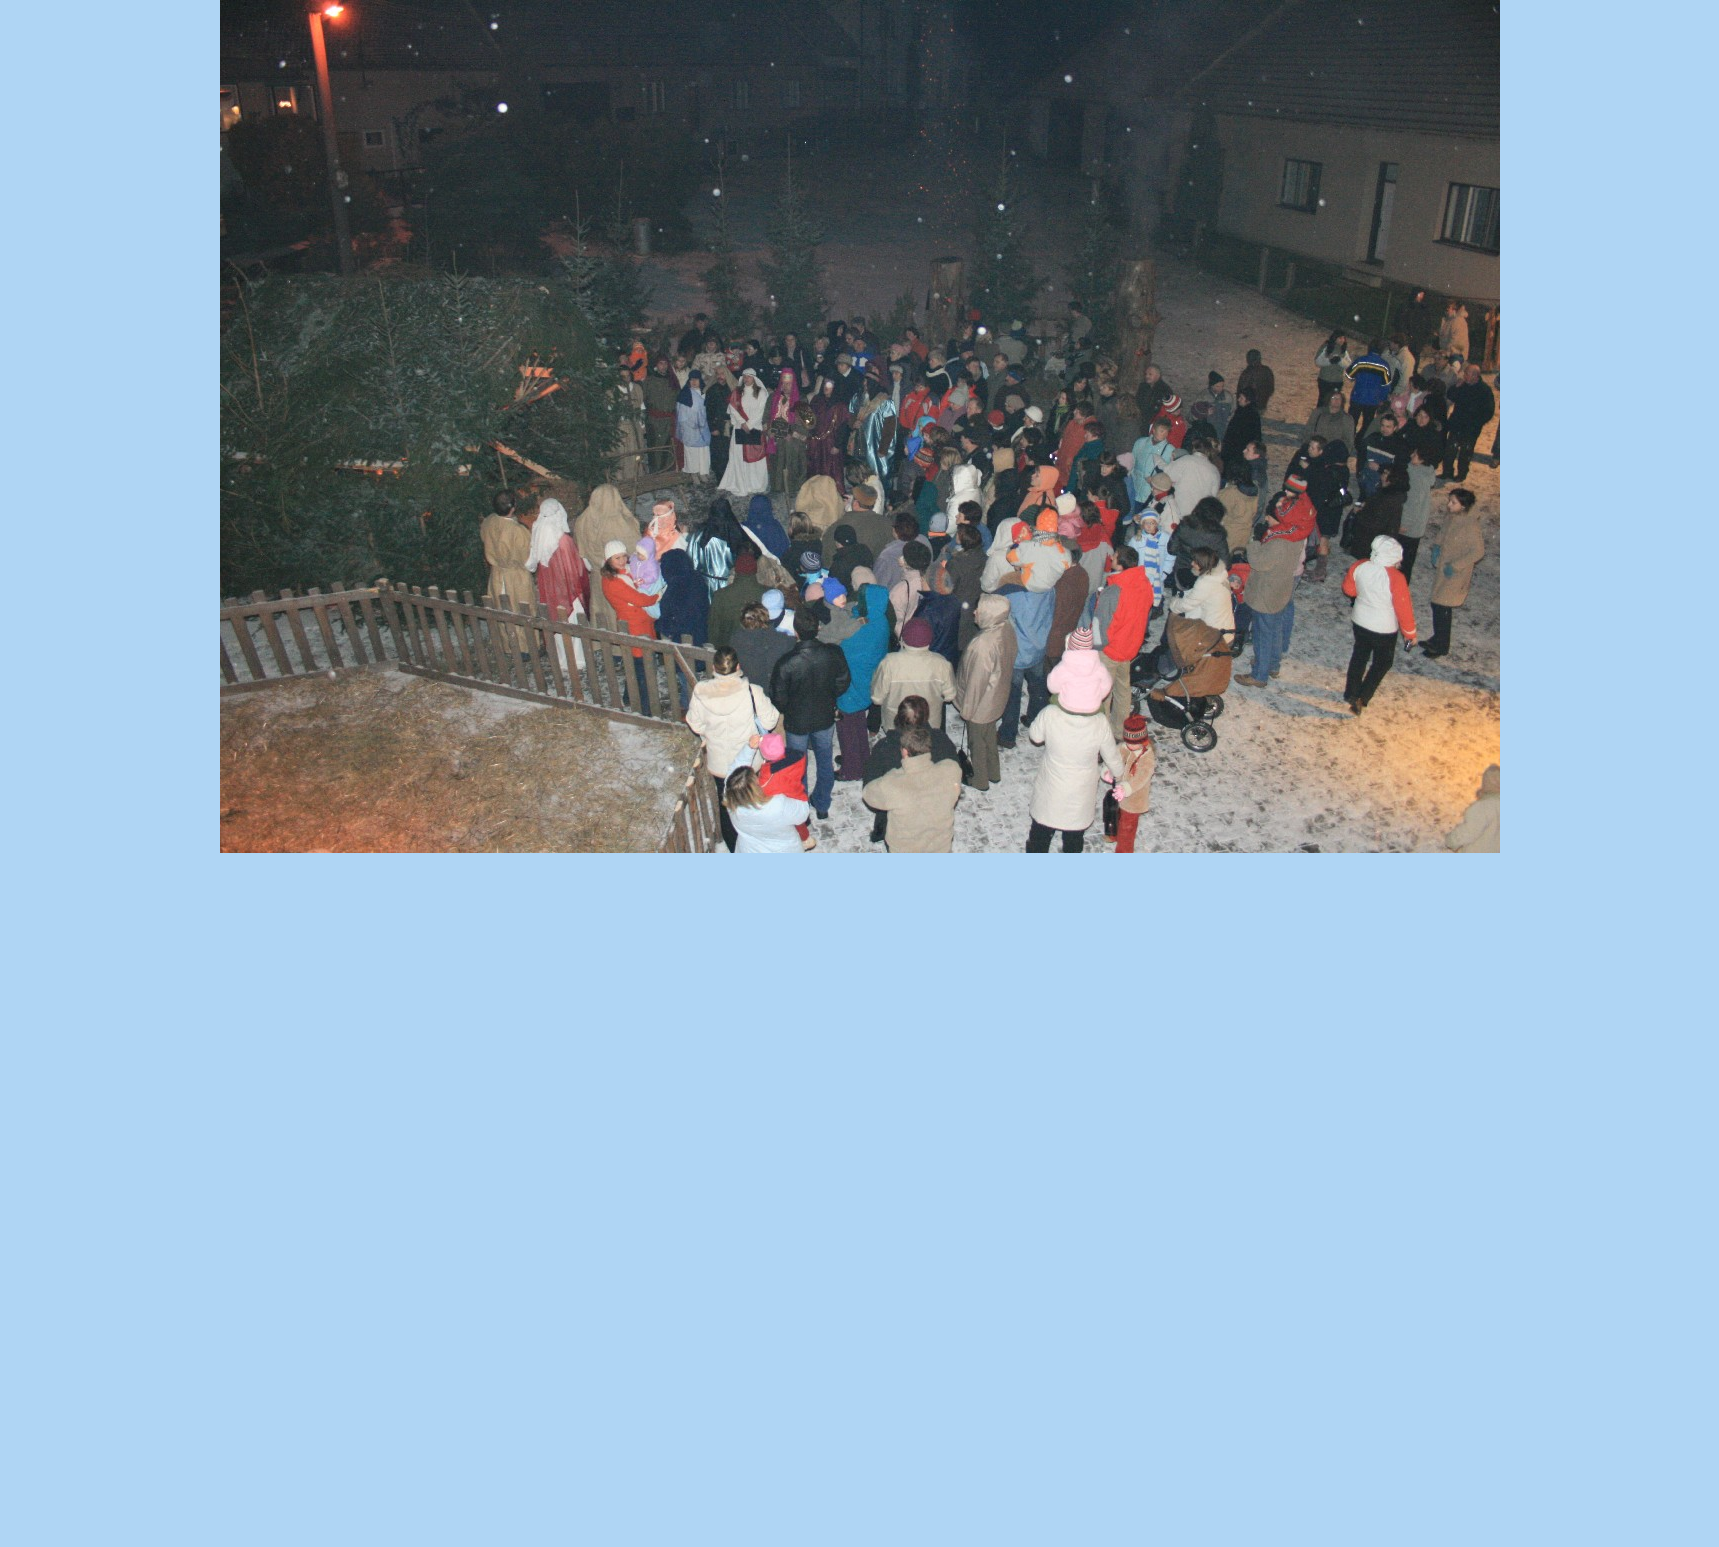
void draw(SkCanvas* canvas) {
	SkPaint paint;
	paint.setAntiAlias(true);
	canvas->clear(0xffafd5f4);
	canvas->drawImageRect(SkImages::DeferredFromEncodedData(SkData::MakeFromFileName("img1.png")), SkRect::MakeXYWH(220, 0, 1280, 853), SkSamplingOptions());
}
